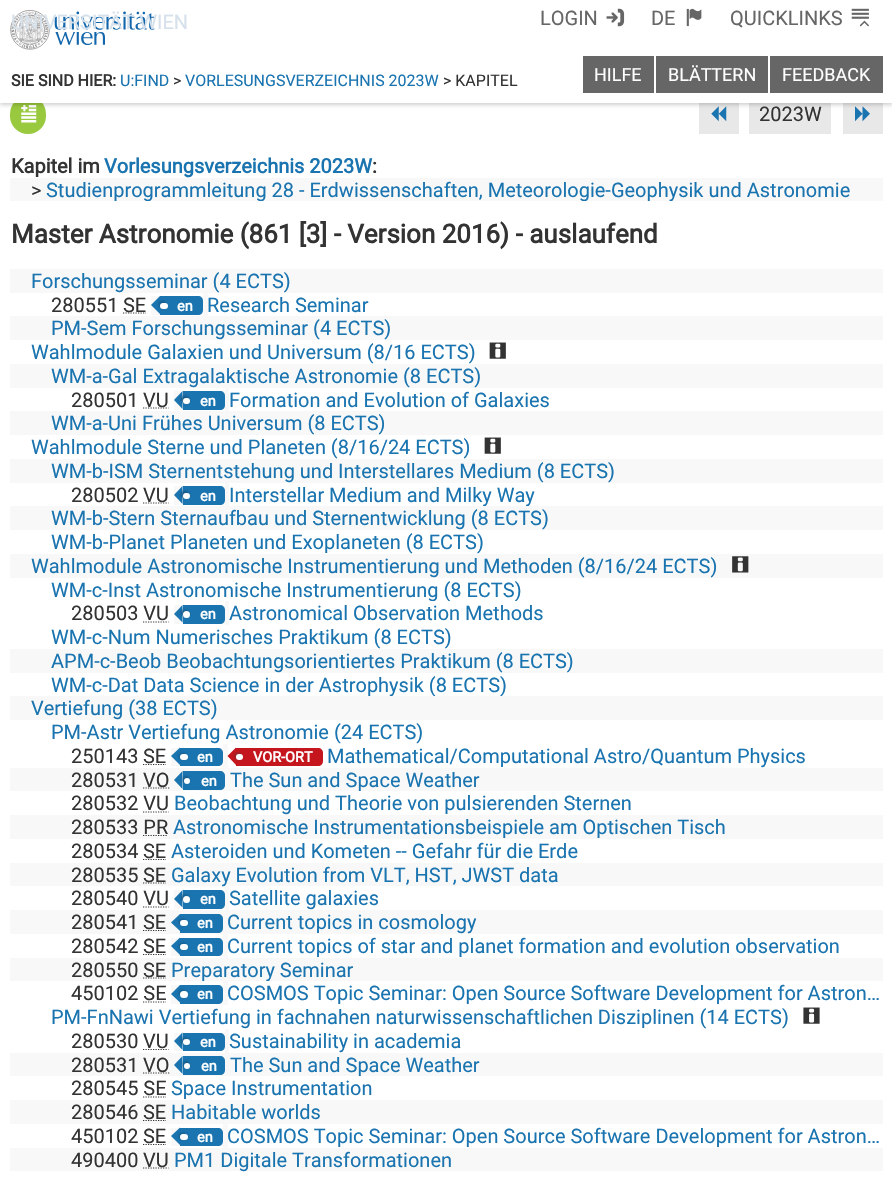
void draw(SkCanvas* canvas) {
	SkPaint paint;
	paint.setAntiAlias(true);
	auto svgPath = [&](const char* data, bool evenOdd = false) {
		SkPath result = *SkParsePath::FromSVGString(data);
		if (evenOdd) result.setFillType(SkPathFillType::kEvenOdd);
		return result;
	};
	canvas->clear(0xffffffff);
	paint.setColor(0xff99c93e);
	canvas->drawRoundRect(SkRect::MakeXYWH(10, 96, 36, 38), 18, 18, paint);
	canvas->drawImageRect(SkImages::DeferredFromEncodedData(SkData::MakeFromFileName("img5.png")), SkRect::MakeXYWH(21, 105, 16, 18), SkSamplingOptions());
	paint.setColor(0xffe8e8e8);
	canvas->drawRect(SkRect::MakeXYWH(699, 103, 40, 31), paint);
	canvas->drawImageRect(SkImages::DeferredFromEncodedData(SkData::MakeFromFileName("img6.png")), SkRect::MakeXYWH(711, 106, 16, 16), SkSamplingOptions());
	canvas->drawRect(SkRect::MakeXYWH(749, 103, 82, 31), paint);
	canvas->drawRect(SkRect::MakeXYWH(843, 103, 40, 31), paint);
	canvas->drawImageRect(SkImages::DeferredFromEncodedData(SkData::MakeFromFileName("img7.png")), SkRect::MakeXYWH(855, 106, 15, 16), SkSamplingOptions());
	paint.setColor(0x2e000000);
	paint.setMaskFilter(SkMaskFilter::MakeBlur(kNormal_SkBlurStyle, 2));
	canvas->drawRect(SkRect::MakeXYWH(0, 3, 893, 102), paint);
	paint.setMaskFilter(nullptr);
	paint.setColor(0xffffffff);
	canvas->drawRect(SkRect::MakeXYWH(0, 0, 892, 103), paint);
	canvas->drawImageRect(SkImages::DeferredFromEncodedData(SkData::MakeFromFileName("img1.png")), SkRect::MakeXYWH(10, 10, 145, 40), SkSamplingOptions());
	SkFont f1(fontMgr->matchFamilyStyle("Roboto", SkFontStyle::Normal()), 20);
	f1.setSubpixel(true);
	paint.setColor(0xffd6e1eb);
	canvas->drawString("UNIVERSITÄT WIEN", 11, 29, f1, paint);
	paint.setColor(0xff666666);
	canvas->drawString("LOGIN", 540, 25, f1, paint);
	canvas->drawImageRect(SkImages::DeferredFromEncodedData(SkData::MakeFromFileName("img2.png")), SkRect::MakeXYWH(606, 8, 19, 19), SkSamplingOptions());
	canvas->drawString("DE", 651, 25, f1, paint);
	canvas->drawImageRect(SkImages::DeferredFromEncodedData(SkData::MakeFromFileName("img3.png")), SkRect::MakeXYWH(686, 8, 16, 19), SkSamplingOptions());
	canvas->drawString("QUICKLINKS", 730, 25, f1, paint);
	canvas->drawImageRect(SkImages::DeferredFromEncodedData(SkData::MakeFromFileName("img4.png")), SkRect::MakeXYWH(851, 8, 18, 19), SkSamplingOptions());
	canvas->drawRect(SkRect::MakeXYWH(583, 56, 71, 37), paint);
	SkFont f2(fontMgr->matchFamilyStyle("Roboto", SkFontStyle::Normal()), 18);
	f2.setSubpixel(true);
	paint.setColor(0xffffffff);
	canvas->drawString("HILFE", 594, 81, f2, paint);
	paint.setColor(0xff666666);
	canvas->drawRect(SkRect::MakeXYWH(656, 56, 112, 37), paint);
	paint.setColor(0xffffffff);
	canvas->drawString("BLÄTTERN", 668, 81, f2, paint);
	paint.setColor(0xff666666);
	canvas->drawRect(SkRect::MakeXYWH(770, 56, 113, 37), paint);
	paint.setColor(0xffffffff);
	canvas->drawString("FEEDBACK", 782, 81, f2, paint);
	SkFont f3(fontMgr->matchFamilyStyle("Roboto", SkFontStyle::Bold()), 16);
	f3.setSubpixel(true);
	paint.setColor(0xff333333);
	canvas->drawString("SIE SIND HIER:", 11, 86, f3, paint);
	SkFont f4(fontMgr->matchFamilyStyle("Roboto", SkFontStyle::Normal()), 16);
	f4.setSubpixel(true);
	paint.setColor(0xff1a74b0);
	canvas->drawString("U:FIND", 120, 86, f4, paint);
	paint.setColor(0xff333333);
	canvas->drawString(">", 173, 86, f4, paint);
	paint.setColor(0xff1a74b0);
	canvas->drawString("VORLESUNGSVERZEICHNIS 2023W", 185, 86, f4, paint);
	paint.setColor(0xff333333);
	canvas->drawString("> KAPITEL", 443, 86, f4, paint);
	canvas->drawString("2023W", 759, 121, f1, paint);
	SkFont f5(fontMgr->matchFamilyStyle("Roboto", SkFontStyle::Bold()), 20);
	f5.setSubpixel(true);
	canvas->drawString("Kapitel im", 11, 173, f5, paint);
	paint.setColor(0xff1a74b0);
	canvas->drawString("Vorlesungsverzeichnis 2023W", 104, 173, f5, paint);
	paint.setColor(0xff333333);
	canvas->drawString(":", 372, 173, f5, paint);
	paint.setColor(0xfff8f8f8);
	canvas->drawRect(SkRect::MakeXYWH(10, 178, 873, 23), paint);
	paint.setColor(0xff333333);
	canvas->drawString(">", 31, 197, f1, paint);
	canvas->save();
	canvas->clipRect(SkRect::MakeXYWH(10, 178, 873, 23));
	paint.setColor(0xff1a74b0);
	canvas->drawString("Studienprogrammleitung 28 - Erdwissenschaften, Meteorologie-Geophysik und Astronomie", 46, 197, f1, paint);
	canvas->restore();
	SkFont f6(fontMgr->matchFamilyStyle("Roboto", SkFontStyle::Bold()), 26);
	f6.setSubpixel(true);
	paint.setColor(0xff333333);
	canvas->drawString("Master Astronomie (861 [3] - Version 2016) - auslaufend", 11, 243, f6, paint);
	paint.setColor(0xfff8f8f8);
	canvas->drawRect(SkRect::MakeXYWH(10, 269, 873, 24), paint);
	paint.setColor(0xff1a74b0);
	canvas->drawString("Forschungsseminar (4 ECTS)", 31, 288, f1, paint);
	paint.setColor(0xff333333);
	canvas->drawString("280551", 51, 312, f1, paint);
	paint.setStroke(true);
	paint.setStrokeWidth(1.2);
	paint.setPathEffect(SkDashPathEffect::Make({{1.25f, 1.25f}}, 0));
	canvas->drawPath(svgPath("M123 313H146"), paint);
	paint.setPathEffect(nullptr);
	paint.setStroke(false);
	canvas->drawString("SE", 123, 312, f1, paint);
	paint.setColor(0xfff8f8f8);
	canvas->drawRect(SkRect::MakeXYWH(151, 296, 52, 19), paint);
	canvas->drawRect(SkRect::MakeXYWH(203, 293, 5, 23), paint);
	paint.setColor(0xff1a74b0);
	canvas->drawPath(svgPath("M160 296V314L151 305Z"), paint);
	canvas->drawPath(svgPath("M160 296H198C201 296 203 298 203 301V310C203 313 201 315 198 315H160Z"), paint);
	paint.setColor(0xff145683);
	paint.setMaskFilter(SkMaskFilter::MakeBlur(kNormal_SkBlurStyle, 1.5));
	canvas->drawRoundRect(SkRect::MakeXYWH(159, 301, 7, 7), 3.5, 3.5, paint);
	paint.setMaskFilter(nullptr);
	paint.setColor(0xffffffff);
	canvas->drawRoundRect(SkRect::MakeXYWH(160, 303, 8, 6), 3, 3, paint);
	SkFont f7(fontMgr->matchFamilyStyle("Roboto", SkFontStyle::Bold()), 14.5);
	f7.setSubpixel(true);
	canvas->drawString("en", 177, 311, f7, paint);
	paint.setColor(0xff1a74b0);
	canvas->drawString("Research Seminar", 207, 312, f1, paint);
	paint.setColor(0xfff8f8f8);
	canvas->drawRect(SkRect::MakeXYWH(10, 316, 873, 24), paint);
	paint.setColor(0xff1a74b0);
	canvas->drawString("PM-Sem Forschungsseminar (4 ECTS)", 51, 335, f1, paint);
	canvas->drawString("Wahlmodule Galaxien und Universum (8/16 ECTS)", 31, 359, f1, paint);
	canvas->drawImageRect(SkImages::DeferredFromEncodedData(SkData::MakeFromFileName("img8.png")), SkRect::MakeXYWH(489, 342, 17, 17), SkSamplingOptions());
	paint.setColor(0xfff8f8f8);
	canvas->drawRect(SkRect::MakeXYWH(10, 364, 873, 24), paint);
	paint.setColor(0xff1a74b0);
	canvas->drawString("WM-a-Gal Extragalaktische Astronomie (8 ECTS)", 51, 383, f1, paint);
	paint.setColor(0xff333333);
	canvas->drawString("280501", 71, 407, f1, paint);
	paint.setStroke(true);
	paint.setPathEffect(SkDashPathEffect::Make({{1.25f, 1.25f}}, 0));
	canvas->drawPath(svgPath("M143 408H168.5"), paint);
	paint.setPathEffect(nullptr);
	paint.setStroke(false);
	canvas->drawString("VU", 143, 407, f1, paint);
	paint.setColor(0xfff8f8f8);
	canvas->drawRect(SkRect::MakeXYWH(174, 391, 51, 19), paint);
	canvas->drawRect(SkRect::MakeXYWH(225, 388, 4, 23), paint);
	paint.setColor(0xff1a74b0);
	canvas->drawPath(svgPath("M182.5 391V409L174 400Z"), paint);
	canvas->drawPath(svgPath("M183 391H220C223 391 225 393 225 396V405C225 408 223 410 220 410H183Z"), paint);
	paint.setColor(0xff145683);
	paint.setMaskFilter(SkMaskFilter::MakeBlur(kNormal_SkBlurStyle, 1.5));
	canvas->drawRoundRect(SkRect::MakeXYWH(181, 396, 8, 7), 3.5, 3.5, paint);
	paint.setMaskFilter(nullptr);
	paint.setColor(0xffffffff);
	canvas->drawRoundRect(SkRect::MakeXYWH(183, 398, 7, 6), 3, 3, paint);
	canvas->drawString("en", 200, 406, f7, paint);
	paint.setColor(0xff1a74b0);
	canvas->drawString("Formation and Evolution of Galaxies", 229, 407, f1, paint);
	paint.setColor(0xfff8f8f8);
	canvas->drawRect(SkRect::MakeXYWH(10, 411, 873, 24), paint);
	paint.setColor(0xff1a74b0);
	canvas->drawString("WM-a-Uni Frühes Universum (8 ECTS)", 51, 430, f1, paint);
	canvas->drawString("Wahlmodule Sterne und Planeten (8/16/24 ECTS)", 31, 454, f1, paint);
	canvas->drawImageRect(SkImages::DeferredFromEncodedData(SkData::MakeFromFileName("img8.png")), SkRect::MakeXYWH(484, 437, 17, 17), SkSamplingOptions());
	paint.setColor(0xfff8f8f8);
	canvas->drawRect(SkRect::MakeXYWH(10, 459, 873, 24), paint);
	paint.setColor(0xff1a74b0);
	canvas->drawString("WM-b-ISM Sternentstehung und Interstellares Medium (8 ECTS)", 51, 478, f1, paint);
	paint.setColor(0xff333333);
	canvas->drawString("280502", 71, 502, f1, paint);
	paint.setStroke(true);
	paint.setPathEffect(SkDashPathEffect::Make({{1.25f, 1.25f}}, 0));
	canvas->drawPath(svgPath("M143 503H168.5"), paint);
	paint.setPathEffect(nullptr);
	paint.setStroke(false);
	canvas->drawString("VU", 143, 502, f1, paint);
	paint.setColor(0xfff8f8f8);
	canvas->drawRect(SkRect::MakeXYWH(174, 486, 51, 19), paint);
	canvas->drawRect(SkRect::MakeXYWH(225, 483, 4, 23), paint);
	paint.setColor(0xff1a74b0);
	canvas->drawPath(svgPath("M182.5 486V504L174 495Z"), paint);
	canvas->drawPath(svgPath("M183 486H220C223 486 225 488 225 491V500C225 503 223 505 220 505H183Z"), paint);
	paint.setColor(0xff145683);
	paint.setMaskFilter(SkMaskFilter::MakeBlur(kNormal_SkBlurStyle, 1.5));
	canvas->drawRoundRect(SkRect::MakeXYWH(181, 491, 8, 7), 3.5, 3.5, paint);
	paint.setMaskFilter(nullptr);
	paint.setColor(0xffffffff);
	canvas->drawRoundRect(SkRect::MakeXYWH(183, 493, 7, 6), 3, 3, paint);
	canvas->drawString("en", 200, 501, f7, paint);
	paint.setColor(0xff1a74b0);
	canvas->drawString("Interstellar Medium and Milky Way", 229, 502, f1, paint);
	paint.setColor(0xfff8f8f8);
	canvas->drawRect(SkRect::MakeXYWH(10, 506, 873, 24), paint);
	paint.setColor(0xff1a74b0);
	canvas->drawString("WM-b-Stern Sternaufbau und Sternentwicklung (8 ECTS)", 51, 525, f1, paint);
	canvas->drawString("WM-b-Planet Planeten und Exoplaneten (8 ECTS)", 51, 549, f1, paint);
	paint.setColor(0xfff8f8f8);
	canvas->drawRect(SkRect::MakeXYWH(10, 554, 873, 24), paint);
	paint.setColor(0xff1a74b0);
	canvas->drawString("Wahlmodule Astronomische Instrumentierung und Methoden (8/16/24 ECTS)", 31, 573, f1, paint);
	canvas->drawImageRect(SkImages::DeferredFromEncodedData(SkData::MakeFromFileName("img9.png")), SkRect::MakeXYWH(732, 556, 17, 17), SkSamplingOptions());
	canvas->save();
	canvas->clipRect(SkRect::MakeXYWH(10, 578, 873, 23));
	canvas->drawString("WM-c-Inst Astronomische Instrumentierung (8 ECTS)", 51, 597, f1, paint);
	canvas->restore();
	paint.setColor(0xff333333);
	canvas->drawString("280503 VU", 71, 620, f1, paint);
	paint.setColor(0xfff8f8f8);
	canvas->drawRect(SkRect::MakeXYWH(174, 605, 51, 19), paint);
	canvas->drawRect(SkRect::MakeXYWH(225, 601, 4, 24), paint);
	paint.setColor(0xff1a74b0);
	canvas->drawPath(svgPath("M182.5 605V622.5L174 614Z"), paint);
	canvas->drawPath(svgPath("M183 605H220C223 605 225 607 225 610V619C225 622 223 624 220 624H183Z"), paint);
	paint.setColor(0xff145683);
	paint.setMaskFilter(SkMaskFilter::MakeBlur(kNormal_SkBlurStyle, 1.5));
	canvas->drawRoundRect(SkRect::MakeXYWH(181, 610, 8, 6), 3, 3, paint);
	paint.setMaskFilter(nullptr);
	paint.setColor(0xffffffff);
	canvas->drawCircle(186.5, 614.5, 3.5, paint);
	canvas->drawString("en", 200, 619, f7, paint);
	paint.setColor(0xff1a74b0);
	canvas->drawString("Astronomical Observation Methods", 229, 620, f1, paint);
	paint.setStroke(true);
	paint.setColor(0xff333333);
	paint.setPathEffect(SkDashPathEffect::Make({{1.25f, 1.25f}}, 0));
	canvas->drawPath(svgPath("M143 622H168.5"), paint);
	paint.setPathEffect(nullptr);
	paint.setStroke(false);
	paint.setColor(0xff1a74b0);
	canvas->drawString("WM-c-Num Numerisches Praktikum (8 ECTS)", 51, 644, f1, paint);
	paint.setColor(0xfff8f8f8);
	canvas->drawRect(SkRect::MakeXYWH(10, 649, 873, 24), paint);
	paint.setColor(0xff1a74b0);
	canvas->drawString("APM-c-Beob Beobachtungsorientiertes Praktikum (8 ECTS)", 51, 668, f1, paint);
	canvas->drawString("WM-c-Dat Data Science in der Astrophysik (8 ECTS)", 51, 692, f1, paint);
	paint.setColor(0xfff8f8f8);
	canvas->drawRect(SkRect::MakeXYWH(10, 696, 873, 24), paint);
	paint.setColor(0xff1a74b0);
	canvas->drawString("Vertiefung (38 ECTS)", 31, 715, f1, paint);
	canvas->drawString("PM-Astr Vertiefung Astronomie (24 ECTS)", 51, 739, f1, paint);
	paint.setColor(0xff333333);
	canvas->drawString("250143", 71, 763, f1, paint);
	paint.setStroke(true);
	paint.setPathEffect(SkDashPathEffect::Make({{1.25f, 1.25f}}, 0));
	canvas->drawPath(svgPath("M143 764.5H166"), paint);
	paint.setPathEffect(nullptr);
	paint.setStroke(false);
	canvas->drawString("SE", 143, 763, f1, paint);
	paint.setColor(0xfff8f8f8);
	canvas->drawRect(SkRect::MakeXYWH(171, 748, 52, 18), paint);
	canvas->drawRect(SkRect::MakeXYWH(223, 744, 5, 24), paint);
	paint.setColor(0xff1a74b0);
	canvas->drawPath(svgPath("M180 747.5V765L171 756Z"), paint);
	canvas->drawPath(svgPath("M180 748H218C221 748 223 750 223 753V761C223 764 221 766 218 766H180Z"), paint);
	paint.setColor(0xff145683);
	paint.setMaskFilter(SkMaskFilter::MakeBlur(kNormal_SkBlurStyle, 1.5));
	canvas->drawRoundRect(SkRect::MakeXYWH(179, 753, 7, 6), 3, 3, paint);
	paint.setMaskFilter(nullptr);
	paint.setColor(0xffffffff);
	canvas->drawRoundRect(SkRect::MakeXYWH(180, 754, 8, 6), 3, 3, paint);
	canvas->drawString("en", 197, 762, f7, paint);
	paint.setColor(0xffc4161c);
	canvas->drawPath(svgPath("M236 747.5V765L227.5 756Z"), paint);
	canvas->drawPath(svgPath("M236 748H318C321 748 323 750 323 753V761C323 764 321 766 318 766H236Z"), paint);
	paint.setColor(0xff723230);
	paint.setMaskFilter(SkMaskFilter::MakeBlur(kNormal_SkBlurStyle, 1.5));
	canvas->drawRoundRect(SkRect::MakeXYWH(235, 753, 6, 6), 3, 3, paint);
	paint.setMaskFilter(nullptr);
	paint.setColor(0xffffffff);
	canvas->drawRoundRect(SkRect::MakeXYWH(236, 754, 7, 6), 3, 3, paint);
	canvas->drawString("VOR-ORT", 253, 762, f7, paint);
	paint.setColor(0xff1a74b0);
	canvas->drawString("Mathematical/Computational Astro/Quantum Physics", 327, 763, f1, paint);
	paint.setColor(0xfff8f8f8);
	canvas->drawRect(SkRect::MakeXYWH(10, 768, 873, 23), paint);
	paint.setColor(0xff333333);
	canvas->drawString("280531", 71, 787, f1, paint);
	paint.setStroke(true);
	paint.setPathEffect(SkDashPathEffect::Make({{1.25f, 1.25f}}, 0));
	canvas->drawPath(svgPath("M143 788H169.5"), paint);
	paint.setPathEffect(nullptr);
	paint.setStroke(false);
	canvas->drawString("VO", 143, 787, f1, paint);
	paint.setColor(0xff1a74b0);
	canvas->drawPath(svgPath("M182.5 771V789L174 780Z"), paint);
	canvas->drawPath(svgPath("M183 771H220C223 771 225 773 225 776V785C225 788 223 790 220 790H183Z"), paint);
	paint.setColor(0xff145683);
	paint.setMaskFilter(SkMaskFilter::MakeBlur(kNormal_SkBlurStyle, 1.5));
	canvas->drawRoundRect(SkRect::MakeXYWH(183, 776, 6, 7), 3, 3, paint);
	paint.setMaskFilter(nullptr);
	paint.setColor(0xffffffff);
	canvas->drawCircle(187, 781, 3, paint);
	canvas->drawString("en", 201, 786, f7, paint);
	paint.setColor(0xff1a74b0);
	canvas->drawString("The Sun and Space Weather", 230, 787, f1, paint);
	paint.setColor(0xff333333);
	canvas->drawString("280532 VU", 71, 810, f1, paint);
	paint.setColor(0xff1a74b0);
	canvas->drawString("Beobachtung und Theorie von pulsierenden Sternen", 174, 810, f1, paint);
	paint.setStroke(true);
	paint.setColor(0xff333333);
	paint.setPathEffect(SkDashPathEffect::Make({{1.25f, 1.25f}}, 0));
	canvas->drawPath(svgPath("M143 812H168.5"), paint);
	paint.setPathEffect(nullptr);
	paint.setStroke(false);
	paint.setColor(0xfff8f8f8);
	canvas->drawRect(SkRect::MakeXYWH(10, 815, 873, 24), paint);
	paint.setColor(0xff333333);
	canvas->drawString("280533 PR", 71, 834, f1, paint);
	paint.setColor(0xff1a74b0);
	canvas->drawString("Astronomische Instrumentationsbeispiele am Optischen Tisch", 173, 834, f1, paint);
	paint.setStroke(true);
	paint.setColor(0xff333333);
	paint.setPathEffect(SkDashPathEffect::Make({{1.25f, 1.25f}}, 0));
	canvas->drawPath(svgPath("M143 835.5H168"), paint);
	paint.setPathEffect(nullptr);
	paint.setStroke(false);
	canvas->drawString("280534", 71, 858, f1, paint);
	paint.setStroke(true);
	paint.setPathEffect(SkDashPathEffect::Make({{1.25f, 1.25f}}, 0));
	canvas->drawPath(svgPath("M143 859.5H166"), paint);
	paint.setPathEffect(nullptr);
	paint.setStroke(false);
	canvas->drawString("SE", 143, 858, f1, paint);
	paint.setColor(0xff1a74b0);
	canvas->drawString("Asteroiden und Kometen -- Gefahr für die Erde", 171, 858, f1, paint);
	paint.setColor(0xfff8f8f8);
	canvas->drawRect(SkRect::MakeXYWH(10, 863, 873, 23), paint);
	paint.setColor(0xff333333);
	canvas->drawString("280535", 71, 882, f1, paint);
	paint.setStroke(true);
	paint.setPathEffect(SkDashPathEffect::Make({{1.25f, 1.25f}}, 0));
	canvas->drawPath(svgPath("M143 883H166"), paint);
	paint.setPathEffect(nullptr);
	paint.setStroke(false);
	canvas->drawString("SE", 143, 882, f1, paint);
	paint.setColor(0xff1a74b0);
	canvas->drawString("Galaxy Evolution from VLT, HST, JWST data", 171, 882, f1, paint);
	paint.setColor(0xff333333);
	canvas->drawString("280540 VU", 71, 905, f1, paint);
	paint.setColor(0xfff8f8f8);
	canvas->drawRect(SkRect::MakeXYWH(174, 890, 51, 19), paint);
	canvas->drawRect(SkRect::MakeXYWH(225, 886, 4, 24), paint);
	paint.setColor(0xff1a74b0);
	canvas->drawPath(svgPath("M182.5 890V907.5L174 899Z"), paint);
	canvas->drawPath(svgPath("M183 890H220C223 890 225 892 225 895V904C225 907 223 909 220 909H183Z"), paint);
	paint.setColor(0xff145683);
	paint.setMaskFilter(SkMaskFilter::MakeBlur(kNormal_SkBlurStyle, 1.5));
	canvas->drawRoundRect(SkRect::MakeXYWH(181, 895, 8, 6), 3, 3, paint);
	paint.setMaskFilter(nullptr);
	paint.setColor(0xffffffff);
	canvas->drawCircle(186.5, 899.5, 3.5, paint);
	canvas->drawString("en", 200, 904, f7, paint);
	paint.setColor(0xff1a74b0);
	canvas->drawString("Satellite galaxies", 229, 905, f1, paint);
	paint.setStroke(true);
	paint.setColor(0xff333333);
	paint.setPathEffect(SkDashPathEffect::Make({{1.25f, 1.25f}}, 0));
	canvas->drawPath(svgPath("M143 907H168.5"), paint);
	paint.setPathEffect(nullptr);
	paint.setStroke(false);
	paint.setColor(0xfff8f8f8);
	canvas->drawRect(SkRect::MakeXYWH(10, 910, 873, 24), paint);
	paint.setColor(0xff333333);
	canvas->drawString("280541", 71, 929, f1, paint);
	paint.setStroke(true);
	paint.setPathEffect(SkDashPathEffect::Make({{1.25f, 1.25f}}, 0));
	canvas->drawPath(svgPath("M143 930.5H166"), paint);
	paint.setPathEffect(nullptr);
	paint.setStroke(false);
	canvas->drawString("SE", 143, 929, f1, paint);
	paint.setColor(0xff1a74b0);
	canvas->drawPath(svgPath("M180 914V931L171 922.5Z"), paint);
	canvas->drawPath(svgPath("M180 914H218C221 914 223 916 223 919V928C223 931 221 933 218 933H180Z"), paint);
	paint.setColor(0xff145683);
	paint.setMaskFilter(SkMaskFilter::MakeBlur(kNormal_SkBlurStyle, 1.5));
	canvas->drawRoundRect(SkRect::MakeXYWH(179, 919, 7, 6), 3, 3, paint);
	paint.setMaskFilter(nullptr);
	paint.setColor(0xffffffff);
	canvas->drawRoundRect(SkRect::MakeXYWH(180, 920, 8, 6), 3, 3, paint);
	canvas->drawString("en", 197, 928, f7, paint);
	paint.setColor(0xff1a74b0);
	canvas->drawString("Current topics in cosmology", 227, 929, f1, paint);
	paint.setColor(0xff333333);
	canvas->drawString("280542", 71, 953, f1, paint);
	paint.setStroke(true);
	paint.setPathEffect(SkDashPathEffect::Make({{1.25f, 1.25f}}, 0));
	canvas->drawPath(svgPath("M143 954.5H166"), paint);
	paint.setPathEffect(nullptr);
	paint.setStroke(false);
	canvas->drawString("SE", 143, 953, f1, paint);
	paint.setColor(0xfff8f8f8);
	canvas->drawRect(SkRect::MakeXYWH(171, 938, 52, 18), paint);
	canvas->drawRect(SkRect::MakeXYWH(223, 934, 5, 24), paint);
	paint.setColor(0xff1a74b0);
	canvas->drawPath(svgPath("M180 937.5V955L171 946Z"), paint);
	canvas->drawPath(svgPath("M180 938H218C221 938 223 940 223 943V951C223 954 221 956 218 956H180Z"), paint);
	paint.setColor(0xff145683);
	paint.setMaskFilter(SkMaskFilter::MakeBlur(kNormal_SkBlurStyle, 1.5));
	canvas->drawRoundRect(SkRect::MakeXYWH(179, 943, 7, 6), 3, 3, paint);
	paint.setMaskFilter(nullptr);
	paint.setColor(0xffffffff);
	canvas->drawRoundRect(SkRect::MakeXYWH(180, 944, 8, 6), 3, 3, paint);
	canvas->drawString("en", 197, 952, f7, paint);
	paint.setColor(0xff1a74b0);
	canvas->drawString("Current topics of star and planet formation and evolution observation", 227, 953, f1, paint);
	paint.setColor(0xfff8f8f8);
	canvas->drawRect(SkRect::MakeXYWH(10, 958, 873, 23), paint);
	paint.setColor(0xff333333);
	canvas->drawString("280550", 71, 977, f1, paint);
	paint.setStroke(true);
	paint.setPathEffect(SkDashPathEffect::Make({{1.25f, 1.25f}}, 0));
	canvas->drawPath(svgPath("M143 978H166"), paint);
	paint.setPathEffect(nullptr);
	paint.setStroke(false);
	canvas->drawString("SE", 143, 977, f1, paint);
	canvas->save();
	canvas->clipRect(SkRect::MakeXYWH(10, 958, 873, 23));
	paint.setColor(0xff1a74b0);
	canvas->drawString("Preparatory Seminar", 171, 977, f1, paint);
	canvas->restore();
	paint.setColor(0xff333333);
	canvas->drawString("450102 SE", 71, 1000, f1, paint);
	paint.setColor(0xfff8f8f8);
	canvas->drawRect(SkRect::MakeXYWH(171, 985, 52, 19), paint);
	canvas->drawRect(SkRect::MakeXYWH(223, 981, 5, 24), paint);
	paint.setColor(0xff1a74b0);
	canvas->drawPath(svgPath("M180 985V1002.5L171 994Z"), paint);
	canvas->drawPath(svgPath("M180 985H218C221 985 223 987 223 990V999C223 1002 221 1004 218 1004H180Z"), paint);
	paint.setColor(0xff145683);
	paint.setMaskFilter(SkMaskFilter::MakeBlur(kNormal_SkBlurStyle, 1.5));
	canvas->drawRoundRect(SkRect::MakeXYWH(179, 990, 7, 6), 3, 3, paint);
	paint.setMaskFilter(nullptr);
	paint.setColor(0xffffffff);
	canvas->drawRoundRect(SkRect::MakeXYWH(180, 991, 8, 7), 3.5, 3.5, paint);
	canvas->drawString("en", 197, 999, f7, paint);
	paint.setColor(0xff1a74b0);
	canvas->drawString("COSMOS Topic Seminar: Open Source Software Development for Astron…", 227, 1000, f1, paint);
	paint.setStroke(true);
	paint.setColor(0xff333333);
	paint.setPathEffect(SkDashPathEffect::Make({{1.25f, 1.25f}}, 0));
	canvas->drawPath(svgPath("M143 1002H166"), paint);
	paint.setPathEffect(nullptr);
	paint.setStroke(false);
	paint.setColor(0xff1a74b0);
	canvas->drawString("PM-FnNawi Vertiefung in fachnahen naturwissenschaftlichen Disziplinen (14 ECTS)", 51, 1024, f1, paint);
	canvas->drawImageRect(SkImages::DeferredFromEncodedData(SkData::MakeFromFileName("img10.png")), SkRect::MakeXYWH(803, 1007, 17, 17), SkSamplingOptions());
	paint.setColor(0xff333333);
	canvas->drawString("280530", 71, 1048, f1, paint);
	paint.setStroke(true);
	paint.setPathEffect(SkDashPathEffect::Make({{1.25f, 1.25f}}, 0));
	canvas->drawPath(svgPath("M143 1049.5H168.5"), paint);
	paint.setPathEffect(nullptr);
	paint.setStroke(false);
	canvas->drawString("VU", 143, 1048, f1, paint);
	paint.setColor(0xfff8f8f8);
	canvas->drawRect(SkRect::MakeXYWH(174, 1033, 51, 18), paint);
	canvas->drawRect(SkRect::MakeXYWH(225, 1029, 4, 24), paint);
	paint.setColor(0xff1a74b0);
	canvas->drawPath(svgPath("M182.5 1032.5V1050L174 1041Z"), paint);
	canvas->drawPath(svgPath("M183 1033H220C223 1033 225 1035 225 1038V1046C225 1049 223 1051 220 1051H183Z"), paint);
	paint.setColor(0xff145683);
	paint.setMaskFilter(SkMaskFilter::MakeBlur(kNormal_SkBlurStyle, 1.5));
	canvas->drawRoundRect(SkRect::MakeXYWH(181, 1038, 8, 6), 3, 3, paint);
	paint.setMaskFilter(nullptr);
	paint.setColor(0xffffffff);
	canvas->drawRoundRect(SkRect::MakeXYWH(183, 1039, 7, 6), 3, 3, paint);
	canvas->drawString("en", 200, 1047, f7, paint);
	paint.setColor(0xff1a74b0);
	canvas->drawString("Sustainability in academia", 229, 1048, f1, paint);
	paint.setColor(0xfff8f8f8);
	canvas->drawRect(SkRect::MakeXYWH(10, 1053, 873, 23), paint);
	paint.setColor(0xff333333);
	canvas->drawString("280531", 71, 1072, f1, paint);
	paint.setStroke(true);
	paint.setPathEffect(SkDashPathEffect::Make({{1.25f, 1.25f}}, 0));
	canvas->drawPath(svgPath("M143 1073H169.5"), paint);
	paint.setPathEffect(nullptr);
	paint.setStroke(false);
	canvas->drawString("VO", 143, 1072, f1, paint);
	paint.setColor(0xff1a74b0);
	canvas->drawPath(svgPath("M182.5 1056V1074L174 1065Z"), paint);
	canvas->drawPath(svgPath("M183 1056H220C223 1056 225 1058 225 1061V1070C225 1073 223 1075 220 1075H183Z"), paint);
	paint.setColor(0xff145683);
	paint.setMaskFilter(SkMaskFilter::MakeBlur(kNormal_SkBlurStyle, 1.5));
	canvas->drawRoundRect(SkRect::MakeXYWH(183, 1061, 6, 7), 3, 3, paint);
	paint.setMaskFilter(nullptr);
	paint.setColor(0xffffffff);
	canvas->drawCircle(187, 1066, 3, paint);
	canvas->drawString("en", 201, 1071, f7, paint);
	paint.setColor(0xff1a74b0);
	canvas->drawString("The Sun and Space Weather", 230, 1072, f1, paint);
	paint.setColor(0xff333333);
	canvas->drawString("280545 SE", 71, 1095, f1, paint);
	paint.setColor(0xff1a74b0);
	canvas->drawString("Space Instrumentation", 171, 1095, f1, paint);
	paint.setStroke(true);
	paint.setColor(0xff333333);
	paint.setPathEffect(SkDashPathEffect::Make({{1.25f, 1.25f}}, 0));
	canvas->drawPath(svgPath("M143 1097H166"), paint);
	paint.setPathEffect(nullptr);
	paint.setStroke(false);
	paint.setColor(0xfff8f8f8);
	canvas->drawRect(SkRect::MakeXYWH(10, 1100, 873, 24), paint);
	paint.setColor(0xff333333);
	canvas->drawString("280546", 71, 1119, f1, paint);
	paint.setStroke(true);
	paint.setPathEffect(SkDashPathEffect::Make({{1.25f, 1.25f}}, 0));
	canvas->drawPath(svgPath("M143 1120.5H166"), paint);
	paint.setPathEffect(nullptr);
	paint.setStroke(false);
	canvas->drawString("SE", 143, 1119, f1, paint);
	paint.setColor(0xff1a74b0);
	canvas->drawString("Habitable worlds", 171, 1119, f1, paint);
	paint.setColor(0xff333333);
	canvas->drawString("450102", 71, 1143, f1, paint);
	paint.setStroke(true);
	paint.setPathEffect(SkDashPathEffect::Make({{1.25f, 1.25f}}, 0));
	canvas->drawPath(svgPath("M143 1144.5H166"), paint);
	paint.setPathEffect(nullptr);
	paint.setStroke(false);
	canvas->drawString("SE", 143, 1143, f1, paint);
	paint.setColor(0xfff8f8f8);
	canvas->drawRect(SkRect::MakeXYWH(171, 1128, 52, 18), paint);
	canvas->drawRect(SkRect::MakeXYWH(223, 1124, 5, 24), paint);
	paint.setColor(0xff1a74b0);
	canvas->drawPath(svgPath("M180 1127.5V1145L171 1136Z"), paint);
	canvas->drawPath(svgPath("M180 1128H218C221 1128 223 1130 223 1133V1141C223 1144 221 1146 218 1146H180Z"), paint);
	paint.setColor(0xff145683);
	paint.setMaskFilter(SkMaskFilter::MakeBlur(kNormal_SkBlurStyle, 1.5));
	canvas->drawRoundRect(SkRect::MakeXYWH(179, 1133, 7, 6), 3, 3, paint);
	paint.setMaskFilter(nullptr);
	paint.setColor(0xffffffff);
	canvas->drawRoundRect(SkRect::MakeXYWH(180, 1134, 8, 6), 3, 3, paint);
	canvas->drawString("en", 197, 1142, f7, paint);
	paint.setColor(0xff1a74b0);
	canvas->drawString("COSMOS Topic Seminar: Open Source Software Development for Astron…", 227, 1143, f1, paint);
	paint.setColor(0xfff8f8f8);
	canvas->drawRect(SkRect::MakeXYWH(10, 1148, 873, 23), paint);
	paint.setColor(0xff333333);
	canvas->drawString("490400", 71, 1167, f1, paint);
	paint.setStroke(true);
	paint.setPathEffect(SkDashPathEffect::Make({{1.25f, 1.25f}}, 0));
	canvas->drawPath(svgPath("M143 1168H168.5"), paint);
	paint.setPathEffect(nullptr);
	paint.setStroke(false);
	canvas->drawString("VU", 143, 1167, f1, paint);
	paint.setColor(0xff1a74b0);
	canvas->drawString("PM1 Digitale Transformationen", 174, 1167, f1, paint);
}
